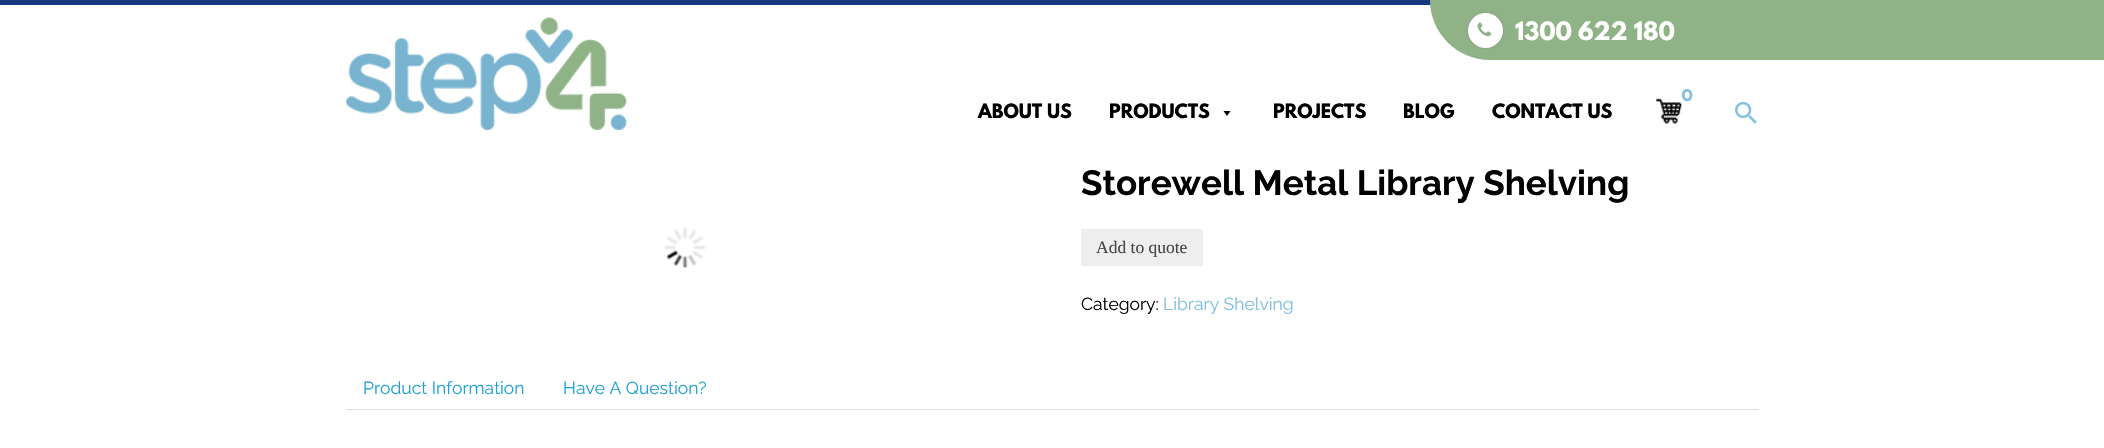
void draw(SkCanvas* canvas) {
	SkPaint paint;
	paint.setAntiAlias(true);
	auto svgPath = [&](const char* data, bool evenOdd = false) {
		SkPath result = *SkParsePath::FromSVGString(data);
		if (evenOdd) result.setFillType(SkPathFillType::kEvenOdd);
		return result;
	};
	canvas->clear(0xffffffff);
	paint.setColor(0xff15387e);
	canvas->drawRect(SkRect::MakeXYWH(0, 0, 1431, 5), paint);
	paint.setColor(0xff8fb287);
	canvas->drawPath(svgPath("M1430 0H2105V60H1490C1457 60 1430 33 1430 0Z"), paint);
	paint.setColor(0xff888888);
	paint.setMaskFilter(SkMaskFilter::MakeBlur(kNormal_SkBlurStyle, 1));
	canvas->drawRoundRect(SkRect::MakeXYWH(1468, 13, 35, 35), 17.5, 17.5, paint);
	paint.setMaskFilter(nullptr);
	paint.setColor(0xffffffff);
	canvas->drawCircle(1485.5, 30.5, 17.5, paint);
	canvas->drawImageRect(SkImages::DeferredFromEncodedData(SkData::MakeFromFileName("img1.png")), SkRect::MakeXYWH(1477, 22, 15, 15), SkSamplingOptions());
	SkFont f1(fontMgr->matchFamilyStyle("League Spartan", SkFontStyle::Bold()), 22.5);
	f1.setSubpixel(true);
	canvas->drawString("1300 622 180", 1515, 40, f1, paint);
	canvas->drawImageRect(SkImages::DeferredFromEncodedData(SkData::MakeFromFileName("img2.png")), SkRect::MakeXYWH(346, 17, 281, 113), SkSamplingOptions());
	SkFont f2(fontMgr->matchFamilyStyle("Raleway", SkFontStyle(100, SkFontStyle::kNormal_Width, SkFontStyle::kUpright_Slant)), 20);
	f2.setSubpixel(true);
	paint.setColor(0xff82c0dd);
	canvas->drawString("0", 1681, 101, f2, paint);
	canvas->drawImageRect(SkImages::DeferredFromEncodedData(SkData::MakeFromFileName("img3.png")), SkRect::MakeXYWH(1656, 98, 26, 26), SkSamplingOptions());
	SkFont f3(fontMgr->matchFamilyStyle("League Spartan", SkFontStyle::Bold()), 17.5);
	f3.setSubpixel(true);
	paint.setColor(0xff000000);
	canvas->drawString("ABOUT US", 978, 118, f3, paint);
	canvas->drawString("PRODUCTS", 1109, 118, f3, paint);
	canvas->drawPath(svgPath("M1230.5 111L1227 116L1223.5 111Z"), paint);
	canvas->drawString("PROJECTS", 1273, 118, f3, paint);
	canvas->drawString("BLOG", 1403, 118, f3, paint);
	canvas->drawString("CONTACT US", 1492, 118, f3, paint);
	canvas->drawImageRect(SkImages::DeferredFromEncodedData(SkData::MakeFromFileName("img4.png")), SkRect::MakeXYWH(1735, 101, 22, 23), SkSamplingOptions());
	canvas->drawImageRect(SkImages::DeferredFromEncodedData(SkData::MakeFromFileName("img5.png")), SkRect::MakeXYWH(664, 227, 42, 41), SkSamplingOptions());
	SkFont f4(fontMgr->matchFamilyStyle("Raleway", SkFontStyle(100, SkFontStyle::kNormal_Width, SkFontStyle::kUpright_Slant)), 35);
	f4.setSubpixel(true);
	canvas->drawString("Storewell Metal Library Shelving", 1081, 195, f4, paint);
	paint.setColor(0xffeeeeee);
	canvas->drawRect(SkRect::MakeXYWH(1081, 229, 122, 37), paint);
	SkFont f5(fontMgr->matchFamilyStyle("Liberation Serif", SkFontStyle::Normal()), 17.5);
	f5.setSubpixel(true);
	paint.setColor(0xff444444);
	canvas->drawString("Add to quote", 1096, 253, f5, paint);
	SkFont f6(fontMgr->matchFamilyStyle("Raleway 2", SkFontStyle(100, SkFontStyle::kNormal_Width, SkFontStyle::kUpright_Slant)), 17.5);
	f6.setSubpixel(true);
	paint.setColor(0xff000000);
	canvas->drawString("Category:", 1081, 310, f6, paint);
	paint.setColor(0xff82c0dd);
	canvas->drawString("Library Shelving", 1163, 310, f6, paint);
	paint.setColor(0xffdddddd);
	canvas->drawRect(SkRect::MakeXYWH(346, 409, 1413, 1), paint);
	paint.setColor(0xff1fa2d6);
	canvas->drawString("Product Information", 363, 394, f6, paint);
	canvas->drawString("Have A Question?", 563, 394, f6, paint);
}
